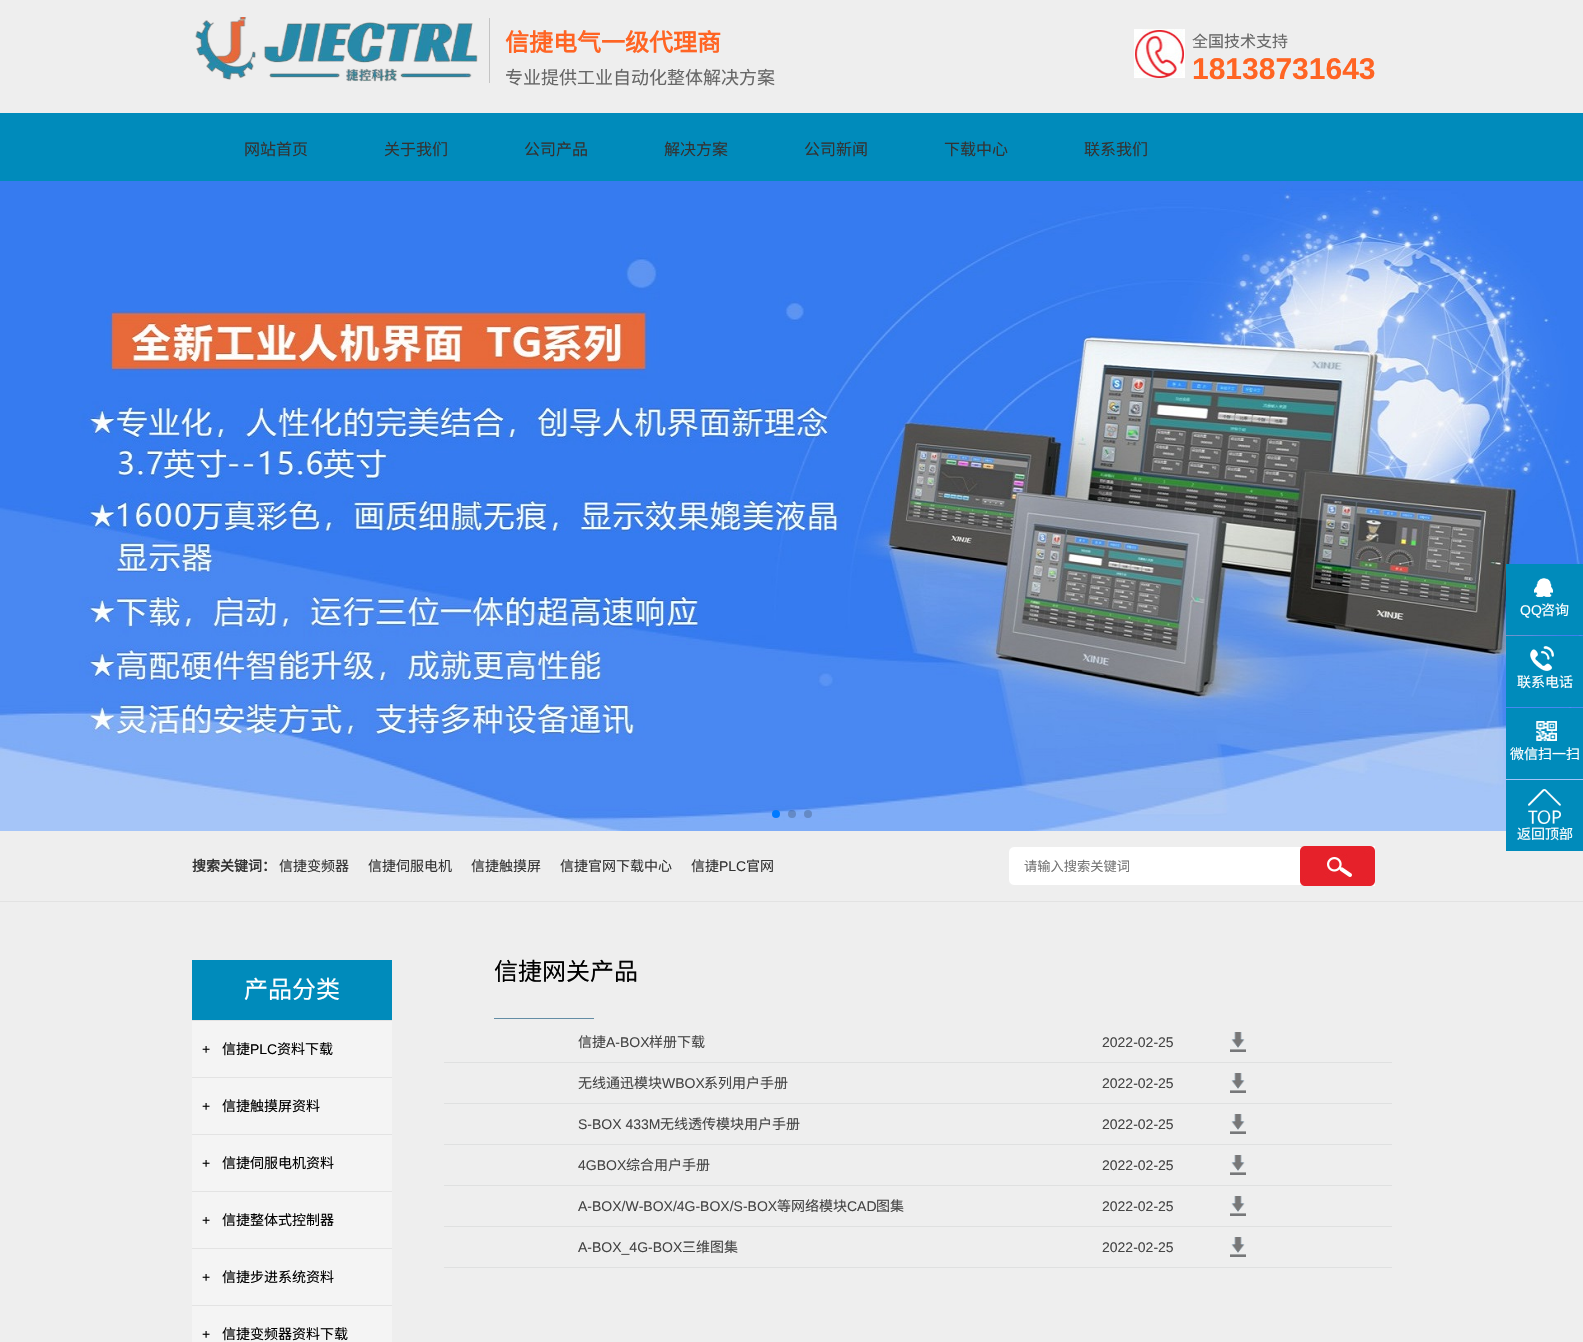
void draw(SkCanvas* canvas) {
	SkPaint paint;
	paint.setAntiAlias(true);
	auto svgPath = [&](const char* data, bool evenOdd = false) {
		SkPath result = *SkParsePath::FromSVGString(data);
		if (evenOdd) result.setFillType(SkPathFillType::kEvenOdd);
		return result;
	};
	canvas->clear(0xffeeeeee);
	canvas->drawImageRect(SkImages::DeferredFromEncodedData(SkData::MakeFromFileName("img1.png")), SkRect::MakeXYWH(195, 17, 283, 65), SkSamplingOptions());
	paint.setColor(0xffc4c4c4);
	canvas->drawRect(SkRect::MakeXYWH(489, 18, 1, 65), paint);
	SkFont f1(fontMgr->matchFamilyStyle("Noto Sans CJK SC", SkFontStyle::Bold()), 24);
	f1.setSubpixel(true);
	paint.setColor(0xffff6423);
	canvas->drawString("信捷电气一级代理商", 505, 51, f1, paint);
	SkFont f2(fontMgr->matchFamilyStyle("Noto Sans CJK SC", SkFontStyle::Normal()), 18);
	f2.setSubpixel(true);
	paint.setColor(0xff666666);
	canvas->drawString("专业提供工业自动化整体解决方案", 505, 84, f2, paint);
	canvas->drawImageRect(SkImages::DeferredFromEncodedData(SkData::MakeFromFileName("img2.png")), SkRect::MakeXYWH(1134, 29, 51, 49), SkSamplingOptions());
	SkFont f3(fontMgr->matchFamilyStyle("Noto Sans CJK SC", SkFontStyle::Normal()), 16);
	f3.setSubpixel(true);
	canvas->drawString("全国技术支持", 1192, 47, f3, paint);
	SkFont f4(fontMgr->matchFamilyStyle("Liberation Sans", SkFontStyle::Bold()), 30);
	f4.setSubpixel(true);
	paint.setColor(0xffff6423);
	canvas->drawString("18138731643", 1192, 79, f4, paint);
	paint.setColor(0xff008bbb);
	canvas->drawRect(SkRect::MakeXYWH(0, 113, 1583, 68), paint);
	paint.setColor(0xff333333);
	canvas->drawString("网站首页", 244, 155, f3, paint);
	canvas->drawString("关于我们", 384, 155, f3, paint);
	canvas->drawString("公司产品", 524, 155, f3, paint);
	canvas->drawString("解决方案", 664, 155, f3, paint);
	canvas->drawString("公司新闻", 804, 155, f3, paint);
	canvas->drawString("下载中心", 944, 155, f3, paint);
	canvas->drawString("联系我们", 1084, 155, f3, paint);
	canvas->drawImageRect(SkImages::DeferredFromEncodedData(SkData::MakeFromFileName("img3.png")), SkRect::MakeXYWH(0, 181, 1583, 650), SkSamplingOptions());
	paint.setColor(0xff007aff);
	canvas->drawCircle(776, 814, 4, paint);
	paint.setColor(0x33000000);
	canvas->drawCircle(792, 814, 4, paint);
	canvas->drawCircle(808, 814, 4, paint);
	paint.setColor(0xff008bbb);
	canvas->drawRect(SkRect::MakeXYWH(1506, 564, 77, 71), paint);
	canvas->drawImageRect(SkImages::DeferredFromEncodedData(SkData::MakeFromFileName("img4.png")), SkRect::MakeXYWH(1534, 578, 19, 19), SkSamplingOptions());
	SkFont f5(fontMgr->matchFamilyStyle("Liberation Sans", SkFontStyle::Normal()), 14);
	f5.setSubpixel(true);
	paint.setColor(0xffffffff);
	canvas->drawString("QQ", 1520, 615, f5, paint);
	SkFont f6(fontMgr->matchFamilyStyle("Noto Sans CJK SC", SkFontStyle::Normal()), 14);
	f6.setSubpixel(true);
	canvas->drawString("咨询", 1541, 615, f6, paint);
	paint.setColor(0xff008bbb);
	canvas->drawRect(SkRect::MakeXYWH(1506, 636, 77, 71), paint);
	canvas->drawImageRect(SkImages::DeferredFromEncodedData(SkData::MakeFromFileName("img5.png")), SkRect::MakeXYWH(1530, 646, 24, 25), SkSamplingOptions());
	paint.setColor(0xffffffff);
	canvas->drawString("联系电话", 1517, 687, f6, paint);
	paint.setColor(0xff008bbb);
	canvas->drawRect(SkRect::MakeXYWH(1506, 708, 77, 71), paint);
	canvas->drawImageRect(SkImages::DeferredFromEncodedData(SkData::MakeFromFileName("img6.png")), SkRect::MakeXYWH(1536, 721, 21, 20), SkSamplingOptions());
	paint.setColor(0xffffffff);
	canvas->drawString("微信扫一扫", 1510, 759, f6, paint);
	paint.setColor(0xff008bbb);
	canvas->drawRect(SkRect::MakeXYWH(1506, 780, 77, 71), paint);
	canvas->drawImageRect(SkImages::DeferredFromEncodedData(SkData::MakeFromFileName("img7.png")), SkRect::MakeXYWH(1528, 789, 33, 35), SkSamplingOptions());
	paint.setColor(0xffffffff);
	canvas->drawString("返回顶部", 1517, 839, f6, paint);
	paint.setColor(0xffe2e2e2);
	canvas->drawRect(SkRect::MakeXYWH(0, 901, 1583, 1), paint);
	SkFont f7(fontMgr->matchFamilyStyle("Noto Sans CJK SC", SkFontStyle::Bold()), 14);
	f7.setSubpixel(true);
	paint.setColor(0xff333333);
	canvas->drawString("搜索关键词：", 192, 871, f7, paint);
	canvas->drawString("信捷变频器", 279, 871, f6, paint);
	canvas->drawString("信捷伺服电机", 368, 871, f6, paint);
	canvas->drawString("信捷触摸屏", 471, 871, f6, paint);
	canvas->drawString("信捷官网下载中心", 560, 871, f6, paint);
	canvas->drawString("信捷", 691, 871, f6, paint);
	canvas->drawString("PLC", 719, 871, f5, paint);
	canvas->drawString("官网", 746, 871, f6, paint);
	paint.setColor(0xffffffff);
	canvas->drawPath(svgPath("M1014 846.5H1306.5V885.5H1014C1011 885.5 1008.5 883 1008.5 880V852C1008.5 849 1011 846.5 1014 846.5Z"), paint);
	paint.setStroke(true);
	paint.setStrokeWidth(1);
	paint.setColor(0xffeeeeee);
	canvas->drawPath(svgPath("M1014 846.5H1306.5V885.5H1014C1011 885.5 1008.5 883 1008.5 880V852C1008.5 849 1011 846.5 1014 846.5Z"), paint);
	SkFont f8(fontMgr->matchFamilyStyle("Noto Sans CJK SC", SkFontStyle::Normal()), 13.25);
	f8.setSubpixel(true);
	paint.setStroke(false);
	paint.setColor(0xff757575);
	canvas->drawString("请输入搜索关键词", 1024, 871, f8, paint);
	canvas->drawImageRect(SkImages::DeferredFromEncodedData(SkData::MakeFromFileName("img8.png")), SkRect::MakeXYWH(1300, 846, 75, 40), SkSamplingOptions());
	paint.setColor(0xff008bbb);
	canvas->drawRect(SkRect::MakeXYWH(192, 960, 200, 60), paint);
	SkFont f9(fontMgr->matchFamilyStyle("Noto Sans CJK SC", SkFontStyle::Normal()), 24);
	f9.setSubpixel(true);
	paint.setColor(0xffffffff);
	canvas->drawString("产品分类", 244, 998, f9, paint);
	paint.setColor(0xfff4f4f4);
	canvas->drawRect(SkRect::MakeXYWH(192, 1021, 200, 56), paint);
	paint.setColor(0xffe3e3e3);
	canvas->drawRect(SkRect::MakeXYWH(192, 1020, 200, 1), paint);
	paint.setColor(0xff000000);
	canvas->drawString("+", 202, 1054, f5, paint);
	canvas->drawString("信捷", 222, 1054, f6, paint);
	canvas->drawString("PLC", 250, 1054, f5, paint);
	canvas->drawString("资料下载", 277, 1054, f6, paint);
	paint.setColor(0xfff4f4f4);
	canvas->drawRect(SkRect::MakeXYWH(192, 1078, 200, 56), paint);
	paint.setColor(0xffe3e3e3);
	canvas->drawRect(SkRect::MakeXYWH(192, 1077, 200, 1), paint);
	paint.setColor(0xff000000);
	canvas->drawString("+", 202, 1111, f5, paint);
	canvas->drawString("信捷触摸屏资料", 222, 1111, f6, paint);
	paint.setColor(0xfff4f4f4);
	canvas->drawRect(SkRect::MakeXYWH(192, 1135, 200, 56), paint);
	paint.setColor(0xffe3e3e3);
	canvas->drawRect(SkRect::MakeXYWH(192, 1134, 200, 1), paint);
	paint.setColor(0xff000000);
	canvas->drawString("+", 202, 1168, f5, paint);
	canvas->drawString("信捷伺服电机资料", 222, 1168, f6, paint);
	paint.setColor(0xfff4f4f4);
	canvas->drawRect(SkRect::MakeXYWH(192, 1192, 200, 56), paint);
	paint.setColor(0xffe3e3e3);
	canvas->drawRect(SkRect::MakeXYWH(192, 1191, 200, 1), paint);
	paint.setColor(0xff000000);
	canvas->drawString("+", 202, 1225, f5, paint);
	canvas->drawString("信捷整体式控制器", 222, 1225, f6, paint);
	paint.setColor(0xfff4f4f4);
	canvas->drawRect(SkRect::MakeXYWH(192, 1249, 200, 56), paint);
	paint.setColor(0xffe3e3e3);
	canvas->drawRect(SkRect::MakeXYWH(192, 1248, 200, 1), paint);
	paint.setColor(0xff000000);
	canvas->drawString("+", 202, 1282, f5, paint);
	canvas->drawString("信捷步进系统资料", 222, 1282, f6, paint);
	paint.setColor(0xfff4f4f4);
	canvas->drawRect(SkRect::MakeXYWH(192, 1306, 200, 36), paint);
	paint.setColor(0xffe3e3e3);
	canvas->drawRect(SkRect::MakeXYWH(192, 1305, 200, 1), paint);
	paint.setColor(0xff000000);
	canvas->drawString("+", 202, 1339, f5, paint);
	canvas->drawString("信捷变频器资料下载", 222, 1339, f6, paint);
	canvas->drawString("信捷网关产品", 494, 980, f9, paint);
	paint.setColor(0xff638da5);
	canvas->drawRect(SkRect::MakeXYWH(494, 1018, 100, 1), paint);
	paint.setColor(0xffdfe0e0);
	canvas->drawRect(SkRect::MakeXYWH(444, 1062, 948, 1), paint);
	paint.setColor(0xff454545);
	canvas->drawString("信捷", 578, 1047, f6, paint);
	canvas->drawString("A-BOX", 606, 1047, f5, paint);
	canvas->drawString("样册下载", 649, 1047, f6, paint);
	canvas->drawString("2022-02-25", 1102, 1047, f5, paint);
	canvas->drawImageRect(SkImages::DeferredFromEncodedData(SkData::MakeFromFileName("img9.png")), SkRect::MakeXYWH(1230, 1032, 16, 20), SkSamplingOptions());
	paint.setColor(0xffdfe0e0);
	canvas->drawRect(SkRect::MakeXYWH(444, 1103, 948, 1), paint);
	paint.setColor(0xff454545);
	canvas->drawString("无线通迅模块", 578, 1088, f6, paint);
	canvas->drawString("WBOX", 662, 1088, f5, paint);
	canvas->drawString("系列用户手册", 704, 1088, f6, paint);
	canvas->drawString("2022-02-25", 1102, 1088, f5, paint);
	canvas->drawImageRect(SkImages::DeferredFromEncodedData(SkData::MakeFromFileName("img9.png")), SkRect::MakeXYWH(1230, 1073, 16, 20), SkSamplingOptions());
	paint.setColor(0xffdfe0e0);
	canvas->drawRect(SkRect::MakeXYWH(444, 1144, 948, 1), paint);
	paint.setColor(0xff454545);
	canvas->drawString("S-BOX 433M", 578, 1129, f5, paint);
	canvas->drawString("无线透传模块用户手册", 660, 1129, f6, paint);
	canvas->drawString("2022-02-25", 1102, 1129, f5, paint);
	canvas->drawImageRect(SkImages::DeferredFromEncodedData(SkData::MakeFromFileName("img9.png")), SkRect::MakeXYWH(1230, 1114, 16, 20), SkSamplingOptions());
	paint.setColor(0xffdfe0e0);
	canvas->drawRect(SkRect::MakeXYWH(444, 1185, 948, 1), paint);
	paint.setColor(0xff454545);
	canvas->drawString("4GBOX", 578, 1170, f5, paint);
	canvas->drawString("综合用户手册", 626, 1170, f6, paint);
	canvas->drawString("2022-02-25", 1102, 1170, f5, paint);
	canvas->drawImageRect(SkImages::DeferredFromEncodedData(SkData::MakeFromFileName("img9.png")), SkRect::MakeXYWH(1230, 1155, 16, 20), SkSamplingOptions());
	paint.setColor(0xffdfe0e0);
	canvas->drawRect(SkRect::MakeXYWH(444, 1226, 948, 1), paint);
	paint.setColor(0xff454545);
	canvas->drawString("A-BOX/W-BOX/4G-BOX/S-BOX", 578, 1211, f5, paint);
	canvas->drawString("等网络模块", 777, 1211, f6, paint);
	canvas->drawString("CAD", 847, 1211, f5, paint);
	canvas->drawString("图集", 876, 1211, f6, paint);
	canvas->drawString("2022-02-25", 1102, 1211, f5, paint);
	canvas->drawImageRect(SkImages::DeferredFromEncodedData(SkData::MakeFromFileName("img9.png")), SkRect::MakeXYWH(1230, 1196, 16, 20), SkSamplingOptions());
	paint.setColor(0xffdfe0e0);
	canvas->drawRect(SkRect::MakeXYWH(444, 1267, 948, 1), paint);
	paint.setColor(0xff454545);
	canvas->drawString("A-BOX_4G-BOX", 578, 1252, f5, paint);
	canvas->drawString("三维图集", 682, 1252, f6, paint);
	canvas->drawString("2022-02-25", 1102, 1252, f5, paint);
	canvas->drawImageRect(SkImages::DeferredFromEncodedData(SkData::MakeFromFileName("img9.png")), SkRect::MakeXYWH(1230, 1237, 16, 20), SkSamplingOptions());
}
